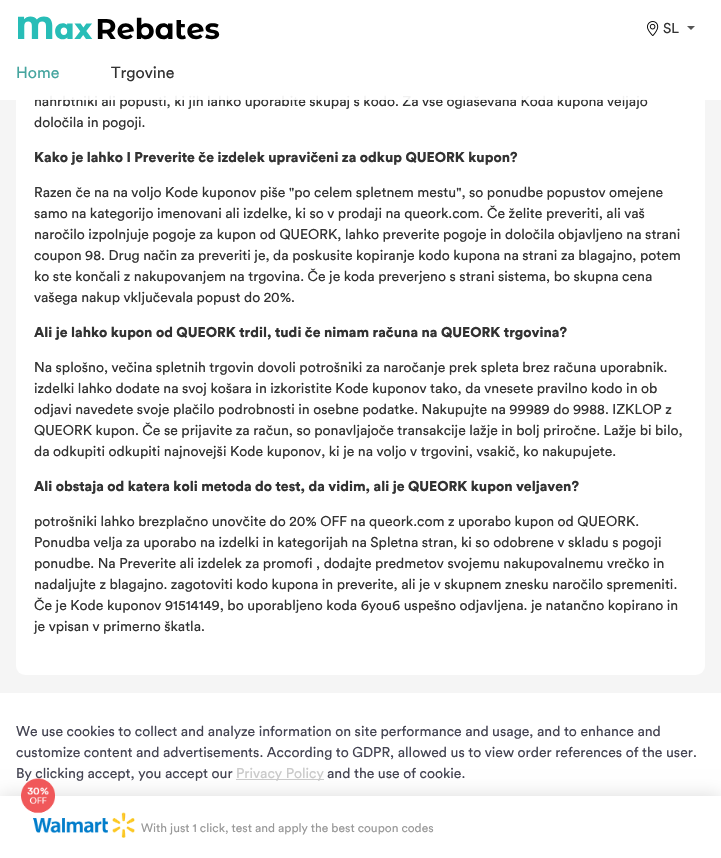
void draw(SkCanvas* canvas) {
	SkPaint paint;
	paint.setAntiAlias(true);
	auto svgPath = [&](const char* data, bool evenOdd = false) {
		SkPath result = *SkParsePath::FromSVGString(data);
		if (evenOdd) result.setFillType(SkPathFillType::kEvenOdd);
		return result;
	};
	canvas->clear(0xfff5f5f5);
	paint.setColor(0xffffffff);
	canvas->drawRoundRect(SkRect::MakeXYWH(16, -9, 689, 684), 9, 9, paint);
	SkFont f1(fontMgr->matchFamilyStyle("Circular", SkFontStyle::Normal()), 14);
	f1.setSubpixel(true);
	paint.setColor(0xff333333);
	canvas->drawString("nahrbtniki ali popusti, ki jih lahko uporabite skupaj s kodo. Za vse oglaševana Koda kupona veljajo", 34, 106, f1, paint);
	paint.setColor(0xedffffff);
	canvas->drawRect(SkRect::MakeXYWH(0, 0, 721, 100), paint);
	canvas->drawImageRect(SkImages::DeferredFromEncodedData(SkData::MakeFromFileName("img1.png")), SkRect::MakeXYWH(18, 16, 202, 24), SkSamplingOptions());
	canvas->drawImageRect(SkImages::DeferredFromEncodedData(SkData::MakeFromFileName("img2.png")), SkRect::MakeXYWH(647, 21, 12, 15), SkSamplingOptions());
	paint.setColor(0xff333333);
	canvas->drawString("SL", 663, 33, f1, paint);
	paint.setColor(0xff555555);
	canvas->drawPath(svgPath("M687 26H695L691 30Z"), paint);
	SkFont f2(fontMgr->matchFamilyStyle("Circular", SkFontStyle::Normal()), 16);
	f2.setSubpixel(true);
	paint.setColor(0xff46a59f);
	canvas->drawString("Home", 16, 78, f2, paint);
	paint.setColor(0xff333333);
	canvas->drawString("Trgovine", 111, 78, f2, paint);
	canvas->drawString("določila in pogoji.", 34, 127, f1, paint);
	SkFont f3(fontMgr->matchFamilyStyle("Circular", SkFontStyle(900, SkFontStyle::kNormal_Width, SkFontStyle::kUpright_Slant)), 14);
	f3.setSubpixel(true);
	canvas->drawString("Kako je lahko I Preverite če izdelek upravičeni za odkup QUEORK kupon?", 34, 162, f3, paint);
	canvas->drawString("Razen če na na voljo Kode kuponov piše \"po celem spletnem mestu\", so ponudbe popustov omejene", 34, 197, f1, paint);
	canvas->drawString("samo na kategorijo imenovani ali izdelke, ki so v prodaji na queork.com. Če želite preveriti, ali vaš", 34, 218, f1, paint);
	canvas->drawString("naročilo izpolnjuje pogoje za kupon od QUEORK, lahko preverite pogoje in določila objavljeno na strani", 34, 239, f1, paint);
	canvas->drawString("coupon 98. Drug način za preveriti je, da poskusite kopiranje kodo kupona na strani za blagajno, potem", 34, 260, f1, paint);
	canvas->drawString("ko ste končali z nakupovanjem na trgovina. Če je koda preverjeno s strani sistema, bo skupna cena", 34, 281, f1, paint);
	canvas->drawString("vašega nakup vključevala popust do 20%.", 34, 302, f1, paint);
	canvas->drawString("Ali je lahko kupon od QUEORK trdil, tudi če nimam računa na QUEORK trgovina?", 34, 337, f3, paint);
	canvas->drawString("Na splošno, večina spletnih trgovin dovoli potrošniki za naročanje prek spleta brez računa uporabnik.", 34, 372, f1, paint);
	canvas->drawString("izdelki lahko dodate na svoj košara in izkoristite Kode kuponov tako, da vnesete pravilno kodo in ob", 34, 393, f1, paint);
	canvas->drawString("odjavi navedete svoje plačilo podrobnosti in osebne podatke. Nakupujte na 99989 do 9988. IZKLOP z", 34, 414, f1, paint);
	canvas->drawString("QUEORK kupon. Če se prijavite za račun, so ponavljajoče transakcije lažje in bolj priročne. Lažje bi bilo,", 34, 435, f1, paint);
	canvas->drawString("da odkupiti odkupiti najnovejši Kode kuponov, ki je na voljo v trgovini, vsakič, ko nakupujete.", 34, 456, f1, paint);
	canvas->drawString("Ali obstaja od katera koli metoda do test, da vidim, ali je QUEORK kupon veljaven?", 34, 491, f3, paint);
	canvas->drawString("potrošniki lahko brezplačno unovčite do 20% OFF na queork.com z uporabo kupon od QUEORK.", 34, 526, f1, paint);
	canvas->drawString("Ponudba velja za uporabo na izdelki in kategorijah na Spletna stran, ki so odobrene v skladu s pogoji", 34, 547, f1, paint);
	canvas->drawString("ponudbe. Na Preverite ali izdelek za promofi , dodajte predmetov svojemu nakupovalnemu vrečko in", 34, 568, f1, paint);
	canvas->drawString("nadaljujte z blagajno. zagotoviti kodo kupona in preverite, ali je v skupnem znesku naročilo spremeniti.", 34, 589, f1, paint);
	canvas->drawString("Če je Kode kuponov 91514149, bo uporabljeno koda 6you6 uspešno odjavljena. je natančno kopirano in", 34, 610, f1, paint);
	canvas->drawString("je vpisan v primerno škatla.", 34, 631, f1, paint);
	paint.setColor(0xffffffff);
	canvas->drawRect(SkRect::MakeXYWH(0, 693, 721, 103), paint);
	paint.setColor(0xff454553);
	canvas->drawString("We use cookies to collect and analyze information on site performance and usage, and to enhance and", 16, 736, f1, paint);
	canvas->drawString("customize content and advertisements. According to GDPR, allowed us to view order references of the user.", 16, 757, f1, paint);
	canvas->drawString("By clicking accept, you accept our", 16, 778, f1, paint);
	paint.setColor(0xffcbcbcb);
	canvas->drawRect(SkRect::MakeXYWH(236, 779, 88, 1), paint);
	canvas->drawString("Privacy Policy", 236, 778, f1, paint);
	paint.setColor(0xff454553);
	canvas->drawString("and the use of cookie.", 327, 778, f1, paint);
	paint.setColor(0x24000000);
	paint.setMaskFilter(SkMaskFilter::MakeBlur(kNormal_SkBlurStyle, 9));
	canvas->drawRect(SkRect::MakeXYWH(0, 796, 721, 62), paint);
	paint.setMaskFilter(nullptr);
	paint.setColor(0xffffffff);
	canvas->drawRect(SkRect::MakeXYWH(0, 796, 721, 62), paint);
	canvas->drawImageRect(SkImages::DeferredFromEncodedData(SkData::MakeFromFileName("img3.png")), SkRect::MakeXYWH(21, 778, 114, 60), SkSamplingOptions());
	SkFont f4(fontMgr->matchFamilyStyle("Circular", SkFontStyle::Normal()), 12);
	f4.setSubpixel(true);
	paint.setColor(0xff999999);
	canvas->drawString("With just 1 click, test and apply the best coupon codes", 141, 832, f4, paint);
}
